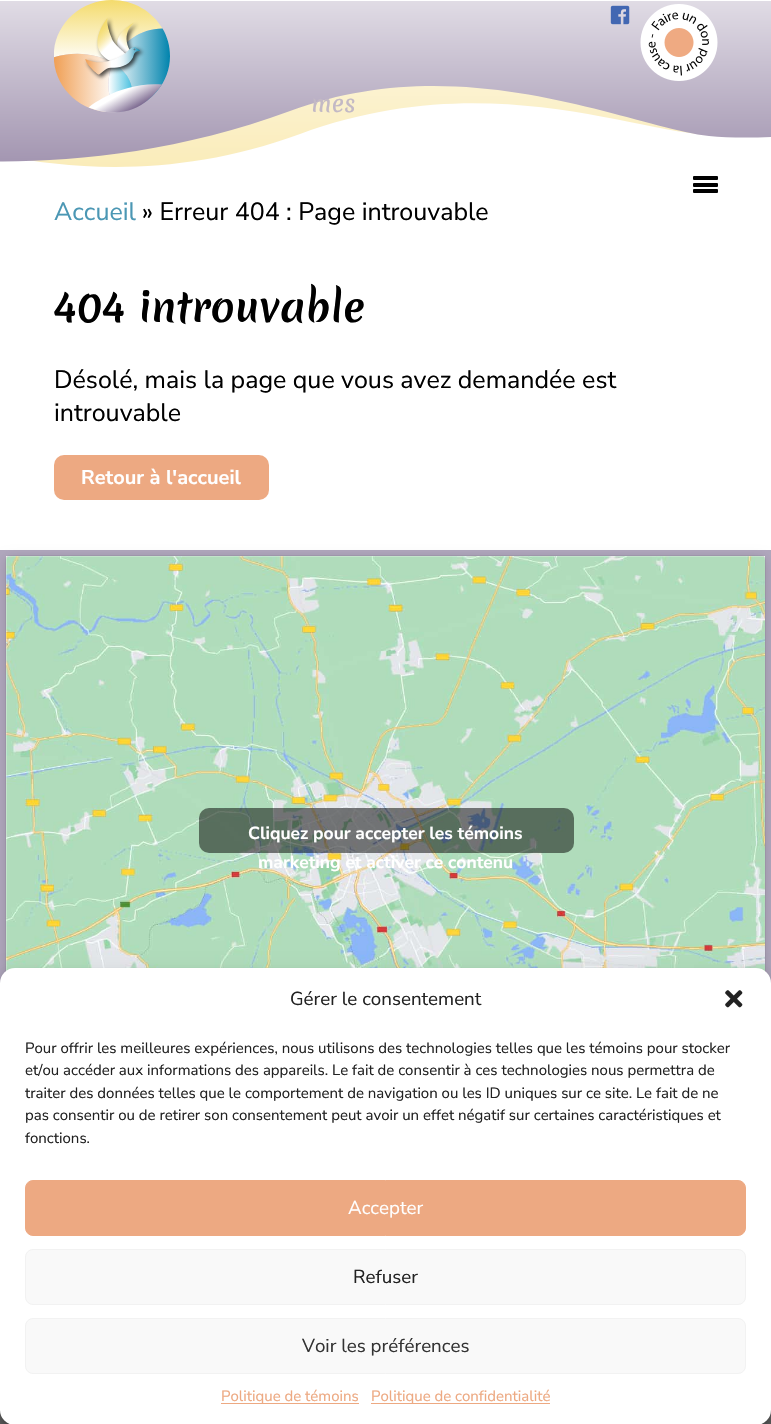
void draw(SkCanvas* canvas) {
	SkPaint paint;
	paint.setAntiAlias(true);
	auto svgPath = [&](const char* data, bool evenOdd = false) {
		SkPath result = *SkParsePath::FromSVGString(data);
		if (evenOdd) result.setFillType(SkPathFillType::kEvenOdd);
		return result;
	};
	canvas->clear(0xffffffff);
	{
		const SkColor colors[] = {0xffffffff, 0xfff8e49c};
		const float stops[] = {0, 1};
		const SkPoint ends[] = {{386, -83}, {386, 274}};
		paint.setShader(SkGradientShader::MakeLinear(ends, colors, stops, 2, SkTileMode::kClamp));
		paint.setAlpha(255);
	}
	canvas->drawPath(svgPath("M-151 101C-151 101 56 224 300 134C476 69 619 126 698 134C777 142 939 102 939 102V19L-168 1Z"), paint);
	{
		const SkColor colors[] = {0xffffffff, 0xff7c6990};
		const float stops[] = {0, 1};
		const SkPoint ends[] = {{385, -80}, {385, 265}};
		paint.setShader(SkGradientShader::MakeLinear(ends, colors, stops, 2, SkTileMode::kClamp));
		paint.setAlpha(255);
	}
	canvas->drawPath(svgPath("M-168 143C-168 143 46 201 290 111C465 46 630 127 709 136C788 144 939 119 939 119V1H-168Z"), paint);
	canvas->drawImageRect(SkImages::DeferredFromEncodedData(SkData::MakeFromFileName("img1.png")), SkRect::MakeXYWH(54, 0, 116, 113), SkSamplingOptions());
	canvas->drawImageRect(SkImages::DeferredFromEncodedData(SkData::MakeFromFileName("img2.png")), SkRect::MakeXYWH(610, 5, 20, 20), SkSamplingOptions());
	canvas->drawImageRect(SkImages::DeferredFromEncodedData(SkData::MakeFromFileName("img3.png")), SkRect::MakeXYWH(640, 4, 78, 77), SkSamplingOptions());
	SkFont f1(fontMgr->matchFamilyStyle("Merienda", SkFontStyle::Normal()), 23);
	f1.setSubpixel(true);
	paint.setShader(nullptr);
	paint.setColor(0xffc3b9c5);
	canvas->drawString("mes", 311, 112, f1, paint);
	paint.setColor(0xff000000);
	canvas->drawRoundRect(SkRect::MakeXYWH(693, 176, 25, 4), 1, 1, paint);
	canvas->drawRoundRect(SkRect::MakeXYWH(693, 183, 25, 4), 1, 1, paint);
	canvas->drawRoundRect(SkRect::MakeXYWH(693, 189, 25, 4), 1, 1, paint);
	SkFont f2(fontMgr->matchFamilyStyle("Nunito Sans", SkFontStyle::Normal()), 25);
	f2.setSubpixel(true);
	paint.setColor(0xff4b97b4);
	canvas->drawString("Accueil", 54, 220, f2, paint);
	paint.setColor(0xff000000);
	canvas->drawString("» Erreur 404 : Page introuvable", 142, 220, f2, paint);
	SkFont f3(fontMgr->matchFamilyStyle("Merienda", SkFontStyle::Bold()), 40);
	f3.setSubpixel(true);
	canvas->drawString("404 introuvable", 54, 322, f3, paint);
	canvas->drawString("Désolé, mais la page que vous avez demandée est", 54, 388, f2, paint);
	canvas->drawString("introuvable", 54, 421, f2, paint);
	paint.setColor(0xffeda982);
	canvas->drawRoundRect(SkRect::MakeXYWH(54, 455, 215, 45), 10, 10, paint);
	SkFont f4(fontMgr->matchFamilyStyle("Nunito Sans", SkFontStyle::Bold()), 20);
	f4.setSubpixel(true);
	paint.setColor(0xffffffff);
	canvas->drawString("Retour à l'accueil", 81, 484, f4, paint);
	paint.setColor(0xffb0a7bd);
	canvas->drawRect(SkRect::MakeXYWH(0, 550, 771, 6), paint);
	canvas->drawRect(SkRect::MakeXYWH(765, 550, 6, 433), paint);
	canvas->drawRect(SkRect::MakeXYWH(0, 550, 6, 433), paint);
	paint.setColor(0x26000000);
	paint.setMaskFilter(SkMaskFilter::MakeBlur(kNormal_SkBlurStyle, 6));
	canvas->drawRoundRect(SkRect::MakeXYWH(6, 558, 759, 546), 4, 4, paint);
	paint.setMaskFilter(nullptr);
	paint.setColor(0x80000000);
	paint.setMaskFilter(SkMaskFilter::MakeBlur(kNormal_SkBlurStyle, 0.5));
	canvas->drawRoundRect(SkRect::MakeXYWH(6, 556, 759, 547), 4, 4, paint);
	paint.setMaskFilter(nullptr);
	paint.setColor(0xffffffff);
	canvas->drawRoundRect(SkRect::MakeXYWH(6, 556, 759, 547), 4, 4, paint);
	canvas->drawImageRect(SkImages::DeferredFromEncodedData(SkData::MakeFromFileName("img4.png")), SkRect::MakeXYWH(6, 556, 759, 415), SkSamplingOptions());
	paint.setColor(0x80000000);
	canvas->drawRoundRect(SkRect::MakeXYWH(199, 808, 375, 45), 10, 10, paint);
	SkFont f5(fontMgr->matchFamilyStyle("Nunito Sans", SkFontStyle::Bold()), 17.5);
	f5.setSubpixel(true);
	paint.setColor(0xffffffff);
	canvas->drawString("Cliquez pour accepter les témoins", 248, 839, f5, paint);
	canvas->drawString("marketing et activer ce contenu", 258, 868, f5, paint);
	paint.setColor(0xff656565);
	canvas->drawRect(SkRect::MakeXYWH(0, 1410, 771, 14), paint);
	paint.setColor(0x3b000000);
	paint.setMaskFilter(SkMaskFilter::MakeBlur(kNormal_SkBlurStyle, 4));
	canvas->drawRoundRect(SkRect::MakeXYWH(0, 975, 771, 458), 15, 15, paint);
	paint.setMaskFilter(nullptr);
	paint.setColor(0x30000000);
	paint.setMaskFilter(SkMaskFilter::MakeBlur(kNormal_SkBlurStyle, 12.5));
	canvas->drawRoundRect(SkRect::MakeXYWH(0, 980, 771, 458), 15, 15, paint);
	paint.setMaskFilter(nullptr);
	paint.setColor(0xffffffff);
	canvas->drawRoundRect(SkRect::MakeXYWH(0, 968, 771, 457), 15, 15, paint);
	SkFont f6(fontMgr->matchFamilyStyle("Nunito Sans", SkFontStyle::Normal()), 18.75);
	f6.setSubpixel(true);
	paint.setColor(0xff222222);
	canvas->drawString("Gérer le consentement", 290, 1005, f6, paint);
	canvas->drawImageRect(SkImages::DeferredFromEncodedData(SkData::MakeFromFileName("img5.png")), SkRect::MakeXYWH(725, 990, 18, 18), SkSamplingOptions());
	SkFont f7(fontMgr->matchFamilyStyle("Nunito Sans", SkFontStyle::Normal()), 15);
	f7.setSubpixel(true);
	canvas->drawString("Pour offrir les meilleures expériences, nous utilisons des technologies telles que les témoins pour stocker", 25, 1053, f7, paint);
	canvas->drawString("et/ou accéder aux informations des appareils. Le fait de consentir à ces technologies nous permettra de", 25, 1075, f7, paint);
	canvas->drawString("traiter des données telles que le comportement de navigation ou les ID uniques sur ce site. Le fait de ne", 25, 1098, f7, paint);
	canvas->drawString("pas consentir ou de retirer son consentement peut avoir un effet négatif sur certaines caractéristiques et", 25, 1120, f7, paint);
	canvas->drawString("fonctions.", 25, 1143, f7, paint);
	paint.setColor(0xffeda982);
	canvas->drawRoundRect(SkRect::MakeXYWH(25.5, 1180.5, 720, 55), 7.5, 7.5, paint);
	paint.setStroke(true);
	paint.setStrokeWidth(1);
	canvas->drawRoundRect(SkRect::MakeXYWH(25.5, 1180.5, 720, 55), 7.5, 7.5, paint);
	paint.setStroke(false);
	paint.setColor(0xffffffff);
	canvas->drawString("Accepter", 348, 1214, f6, paint);
	paint.setColor(0xfff9f9f9);
	canvas->drawRoundRect(SkRect::MakeXYWH(25.5, 1249.5, 720, 55), 7.5, 7.5, paint);
	paint.setStroke(true);
	paint.setColor(0xfff2f2f2);
	canvas->drawRoundRect(SkRect::MakeXYWH(25.5, 1249.5, 720, 55), 7.5, 7.5, paint);
	paint.setStroke(false);
	paint.setColor(0xff222222);
	canvas->drawString("Refuser", 353, 1283, f6, paint);
	paint.setColor(0xfff9f9f9);
	canvas->drawRoundRect(SkRect::MakeXYWH(25.5, 1318.5, 720, 55), 7.5, 7.5, paint);
	paint.setStroke(true);
	paint.setColor(0xfff2f2f2);
	canvas->drawRoundRect(SkRect::MakeXYWH(25.5, 1318.5, 720, 55), 7.5, 7.5, paint);
	paint.setStroke(false);
	paint.setColor(0xff333333);
	canvas->drawString("Voir les préférences", 302, 1352, f6, paint);
	paint.setColor(0xffeda982);
	canvas->drawRect(SkRect::MakeXYWH(221, 1403, 138, 1), paint);
	canvas->drawString("Politique de témoins", 221, 1401, f7, paint);
	canvas->drawRect(SkRect::MakeXYWH(371, 1403, 179, 1), paint);
	canvas->drawString("Politique de confidentialité", 371, 1401, f7, paint);
}
